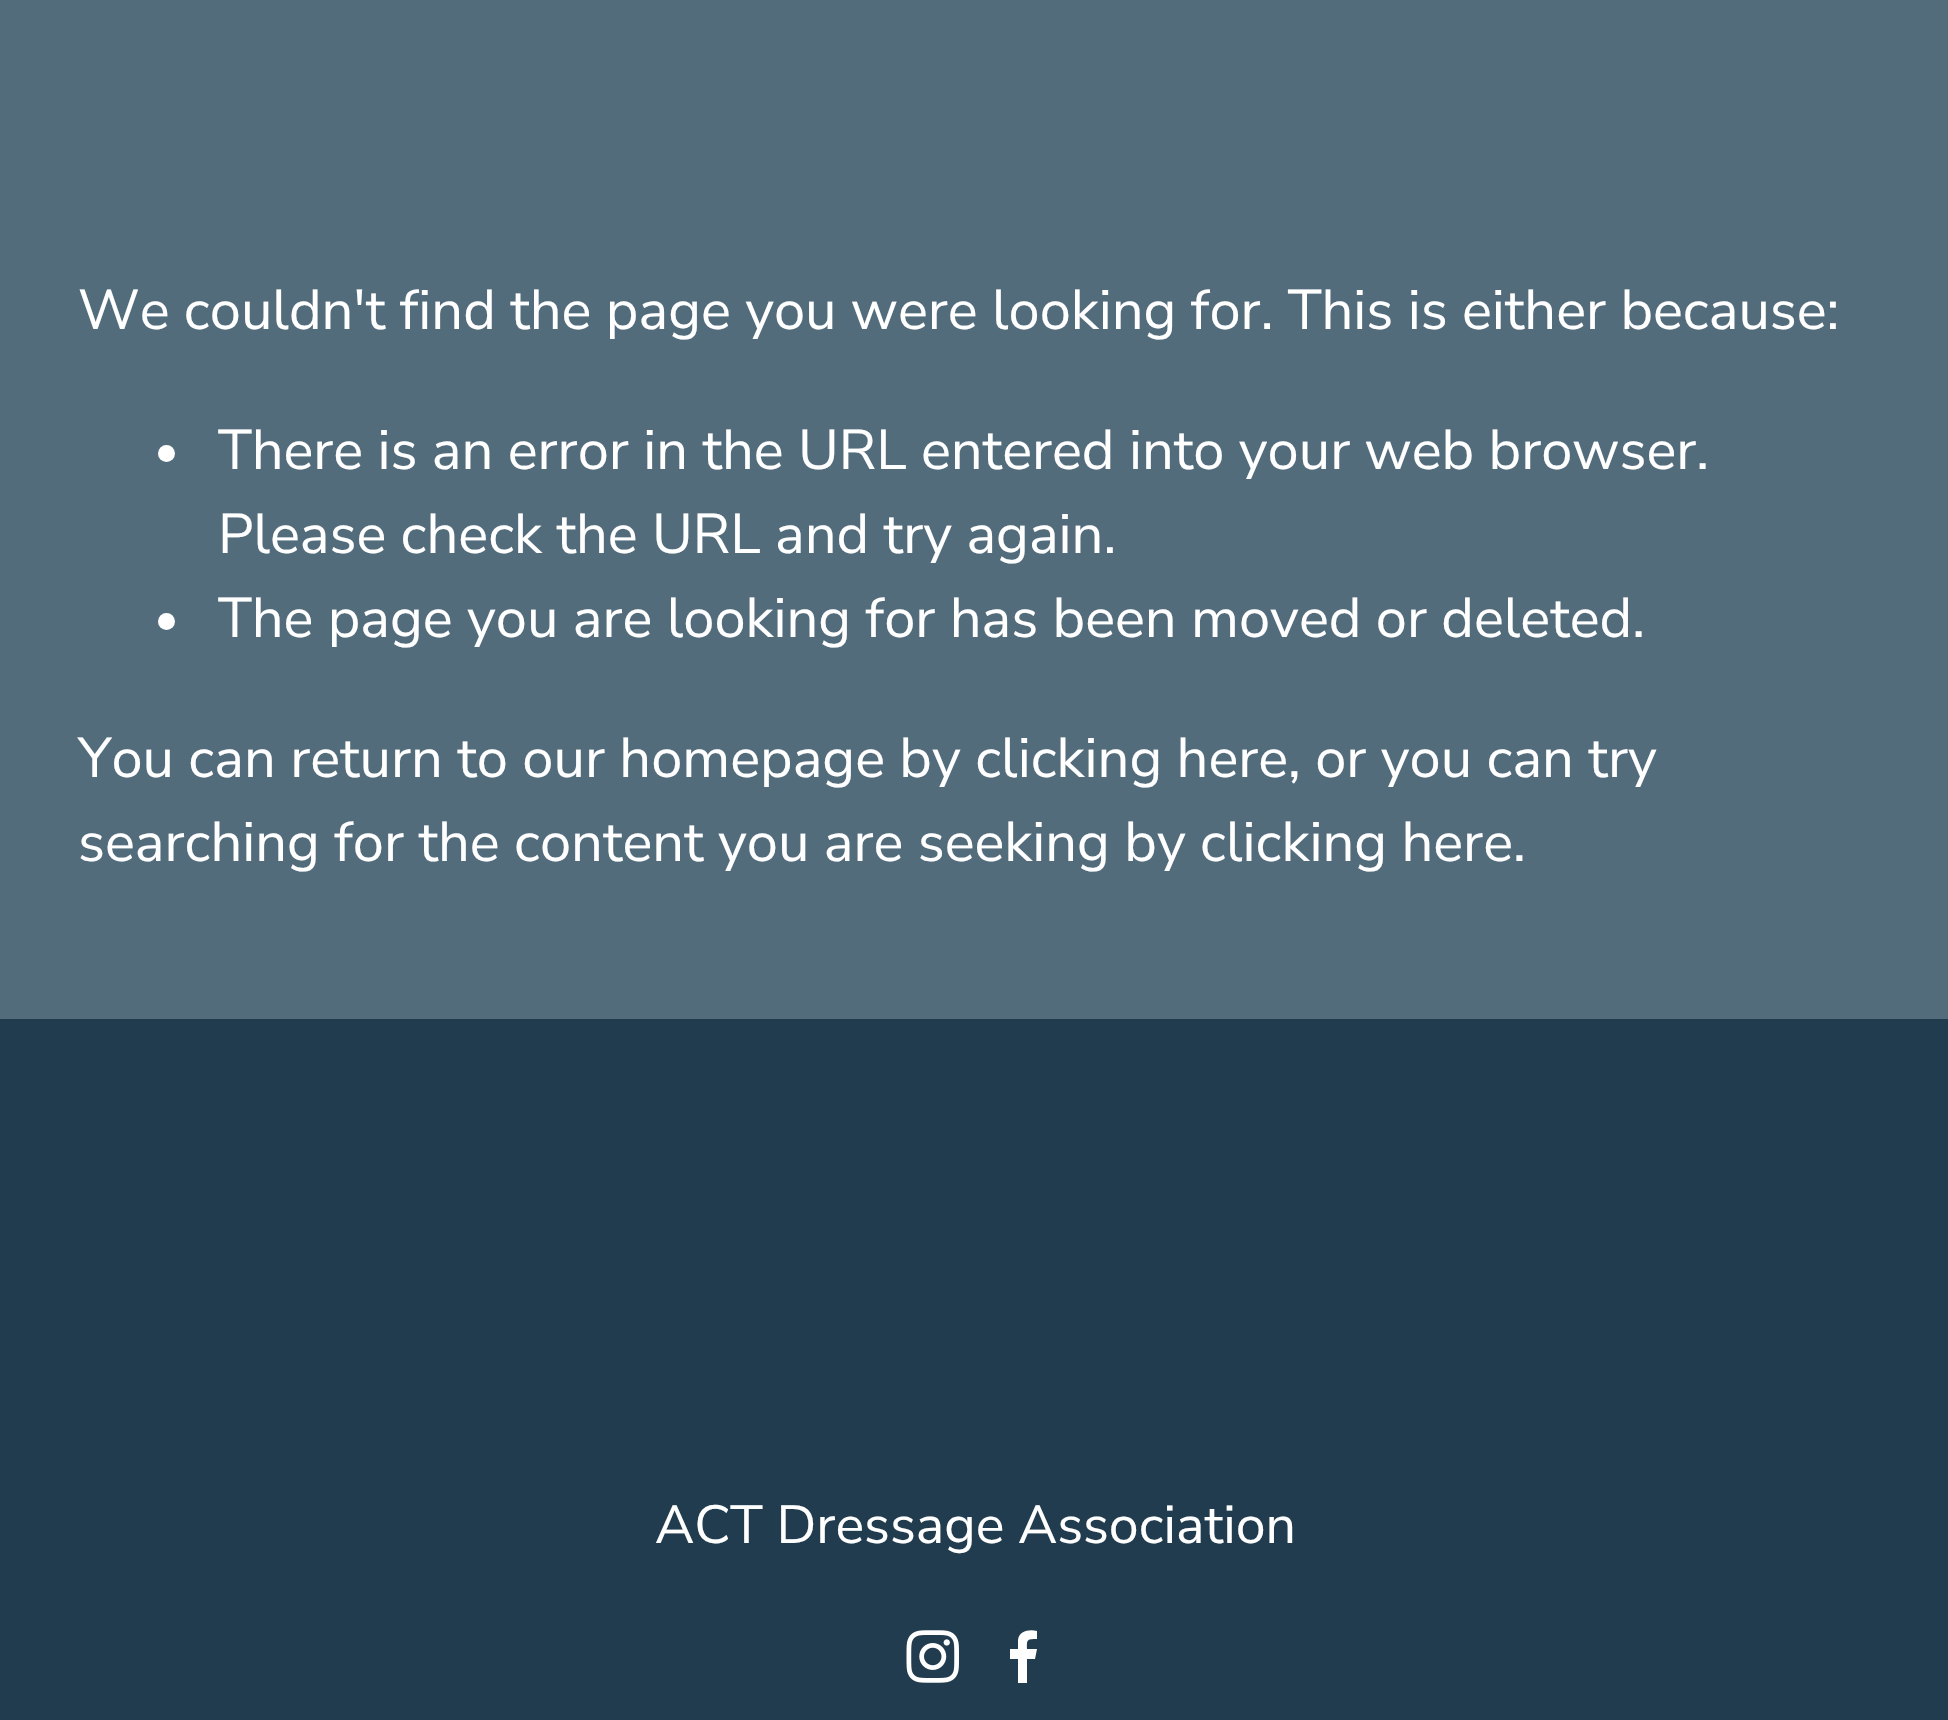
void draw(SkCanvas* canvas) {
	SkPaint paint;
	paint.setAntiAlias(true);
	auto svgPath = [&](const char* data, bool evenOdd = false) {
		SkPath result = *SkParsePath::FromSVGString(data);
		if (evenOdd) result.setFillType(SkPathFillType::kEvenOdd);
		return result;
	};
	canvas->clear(0xff536c7c);
	SkFont f1(fontMgr->matchFamilyStyle("Nunito Sans", SkFontStyle::Normal()), 56);
	f1.setSubpixel(true);
	paint.setColor(0xffffffff);
	canvas->drawString("We couldn't find the page you were looking for. This is either because:", 78, 329, f1, paint);
	canvas->drawCircle(166.5, 453.5, 8.5, paint);
	canvas->drawString("There is an error in the URL entered into your web browser.", 218, 469, f1, paint);
	canvas->drawString("Please check the URL and try again.", 218, 553, f1, paint);
	canvas->drawCircle(166.5, 621.5, 8.5, paint);
	canvas->drawString("The page you are looking for has been moved or deleted.", 218, 637, f1, paint);
	canvas->drawString("You can return to our homepage by clicking here, or you can try", 78, 777, f1, paint);
	canvas->drawString("searching for the content you are seeking by clicking here.", 78, 861, f1, paint);
	paint.setColor(0xff213c4e);
	canvas->drawRect(SkRect::MakeXYWH(0, 1019, 1948, 701), paint);
	SkFont f2(fontMgr->matchFamilyStyle("Nunito Sans", SkFontStyle::Normal()), 53.7);
	f2.setSubpixel(true);
	paint.setColor(0xffffffff);
	canvas->drawString("ACT Dressage Association", 655, 1543, f2, paint);
	canvas->drawImageRect(SkImages::DeferredFromEncodedData(SkData::MakeFromFileName("img1.png")), SkRect::MakeXYWH(906, 1630, 53, 53), SkSamplingOptions());
	canvas->drawPath(svgPath("M1027 1683V1659H1035L1037 1649H1027C1027 1640 1026 1639 1037 1639V1631C1029 1629 1019 1631 1018 1640V1649H1010V1659H1018V1683Z"), paint);
}
